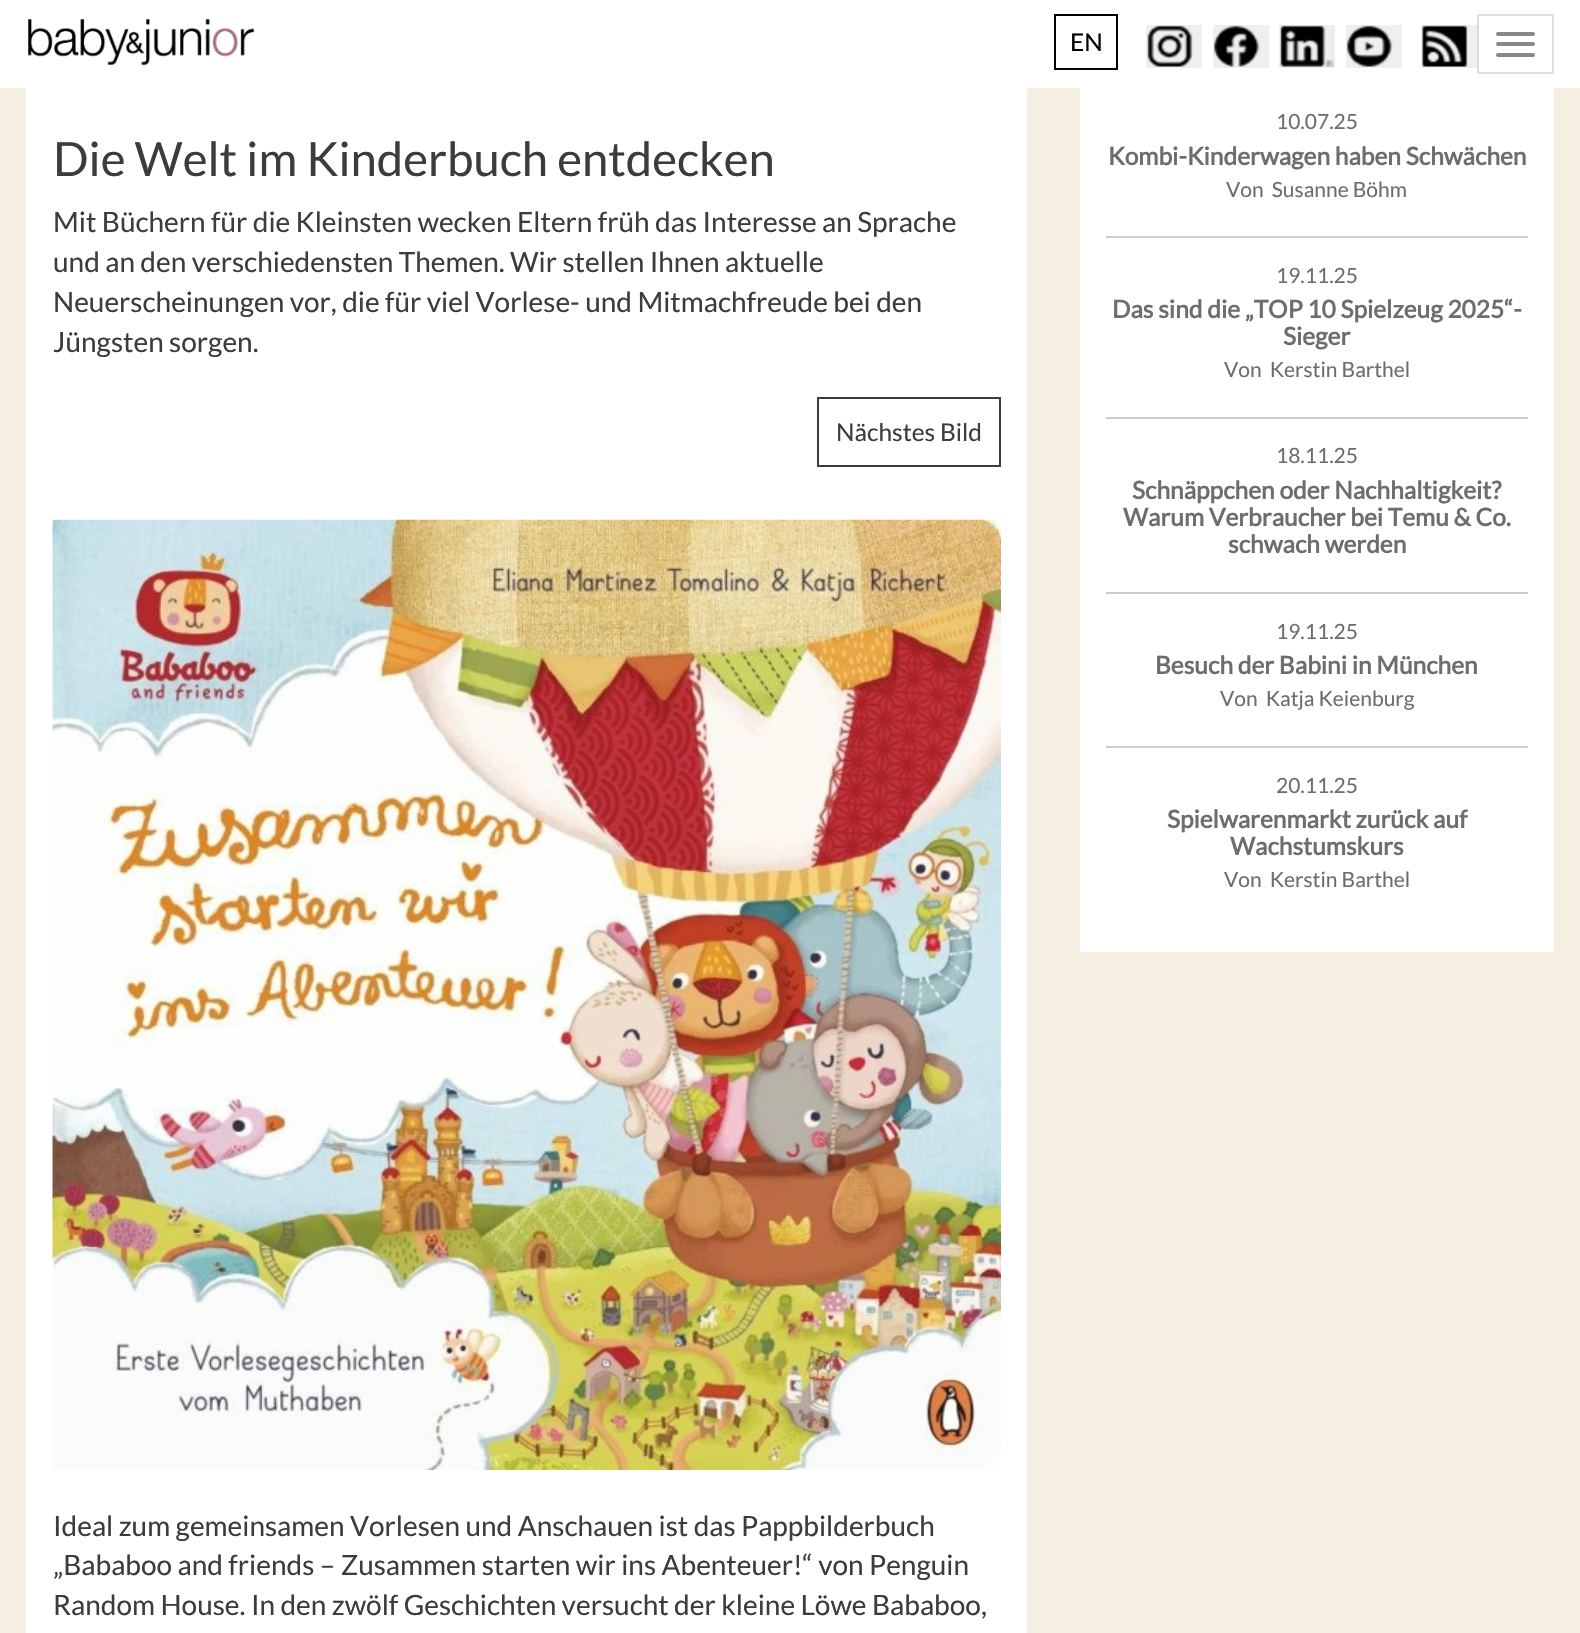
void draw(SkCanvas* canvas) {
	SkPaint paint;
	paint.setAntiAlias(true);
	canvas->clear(0xfff4efe0);
	paint.setColor(0xffffffff);
	canvas->drawRect(SkRect::MakeXYWH(0, 0, 1580, 88), paint);
	canvas->drawImageRect(SkImages::DeferredFromEncodedData(SkData::MakeFromFileName("img1.png")), SkRect::MakeXYWH(28, 19, 227, 46), SkSamplingOptions());
	paint.setStroke(true);
	paint.setStrokeWidth(2);
	paint.setColor(0xff000000);
	canvas->drawRect(SkRect::MakeXYWH(1055, 15, 62, 54), paint);
	SkFont f1(fontMgr->matchFamilyStyle("Lato", SkFontStyle::Normal()), 24.5);
	f1.setSubpixel(true);
	paint.setStroke(false);
	canvas->drawString("EN", 1070, 51, f1, paint);
	paint.setColor(0xffefefef);
	canvas->drawRect(SkRect::MakeXYWH(1146, 25, 56, 43), paint);
	canvas->drawImageRect(SkImages::DeferredFromEncodedData(SkData::MakeFromFileName("img2.png")), SkRect::MakeXYWH(1147, 25, 46, 42), SkSamplingOptions());
	canvas->drawRect(SkRect::MakeXYWH(1213, 25, 56, 43), paint);
	canvas->drawImageRect(SkImages::DeferredFromEncodedData(SkData::MakeFromFileName("img3.png")), SkRect::MakeXYWH(1214, 25, 46, 42), SkSamplingOptions());
	canvas->drawRect(SkRect::MakeXYWH(1279, 25, 56, 43), paint);
	canvas->drawImageRect(SkImages::DeferredFromEncodedData(SkData::MakeFromFileName("img4.png")), SkRect::MakeXYWH(1280, 25, 54, 42), SkSamplingOptions());
	canvas->drawRect(SkRect::MakeXYWH(1346, 25, 56, 43), paint);
	canvas->drawImageRect(SkImages::DeferredFromEncodedData(SkData::MakeFromFileName("img5.png")), SkRect::MakeXYWH(1347, 25, 46, 42), SkSamplingOptions());
	canvas->drawRect(SkRect::MakeXYWH(1421, 25, 56, 43), paint);
	canvas->drawImageRect(SkImages::DeferredFromEncodedData(SkData::MakeFromFileName("img6.png")), SkRect::MakeXYWH(1422, 25, 46, 42), SkSamplingOptions());
	paint.setStroke(true);
	paint.setColor(0xffdddddd);
	canvas->drawRect(SkRect::MakeXYWH(1478, 15, 75, 58), paint);
	paint.setStroke(false);
	paint.setColor(0xff888888);
	canvas->drawRoundRect(SkRect::MakeXYWH(1496, 32, 39, 4), 2, 2, paint);
	canvas->drawRoundRect(SkRect::MakeXYWH(1496, 42, 39, 4), 2, 2, paint);
	canvas->drawRoundRect(SkRect::MakeXYWH(1496, 53, 39, 4), 2, 2, paint);
	paint.setColor(0xffffffff);
	canvas->drawRect(SkRect::MakeXYWH(26, 88, 1001, 1545), paint);
	SkFont f2(fontMgr->matchFamilyStyle("Lato", SkFontStyle::Normal()), 47.25);
	f2.setSubpixel(true);
	paint.setColor(0xff3c3c3c);
	canvas->drawString("Die Welt im Kinderbuch entdecken", 53, 176, f2, paint);
	SkFont f3(fontMgr->matchFamilyStyle("Lato", SkFontStyle::Normal()), 28);
	f3.setSubpixel(true);
	canvas->drawString("Mit Büchern für die Kleinsten wecken Eltern früh das Interesse an Sprache", 53, 232, f3, paint);
	canvas->drawString("und an den verschiedensten Themen. Wir stellen Ihnen aktuelle", 53, 272, f3, paint);
	canvas->drawString("Neuerscheinungen vor, die für viel Vorlese- und Mitmachfreude bei den", 53, 312, f3, paint);
	canvas->drawString("Jüngsten sorgen.", 53, 352, f3, paint);
	paint.setStroke(true);
	canvas->drawRect(SkRect::MakeXYWH(818, 398, 182, 68), paint);
	paint.setStroke(false);
	canvas->drawString("Nächstes Bild", 836, 441, f1, paint);
	canvas->drawImageRect(SkImages::DeferredFromEncodedData(SkData::MakeFromFileName("img7.png")), SkRect::MakeXYWH(52, 519, 949, 951), SkSamplingOptions());
	canvas->drawString("Ideal zum gemeinsamen Vorlesen und Anschauen ist das Pappbilderbuch", 53, 1536, f3, paint);
	canvas->drawString("„Bababoo and friends – Zusammen starten wir ins Abenteuer!“ von Penguin", 53, 1575, f3, paint);
	canvas->drawString("Random House. In den zwölf Geschichten versucht der kleine Löwe Bababoo,", 53, 1615, f3, paint);
	paint.setColor(0xffffffff);
	canvas->drawRect(SkRect::MakeXYWH(1080, 88, 474, 864), paint);
	paint.setColor(0xffcccccc);
	canvas->drawRect(SkRect::MakeXYWH(1106, 236, 422, 2), paint);
	SkFont f4(fontMgr->matchFamilyStyle("Lato", SkFontStyle::Normal()), 21);
	f4.setSubpixel(true);
	paint.setColor(0xff6d6d6d);
	canvas->drawString("10.07.25", 1276, 129, f4, paint);
	SkFont f5(fontMgr->matchFamilyStyle("Lato", SkFontStyle::Bold()), 24.5);
	f5.setSubpixel(true);
	canvas->drawString("Kombi-Kinderwagen haben Schwächen", 1108, 165, f5, paint);
	canvas->drawString("Von  Susanne Böhm", 1226, 197, f4, paint);
	paint.setColor(0xffcccccc);
	canvas->drawRect(SkRect::MakeXYWH(1106, 417, 422, 2), paint);
	paint.setColor(0xff6d6d6d);
	canvas->drawString("19.11.25", 1276, 283, f4, paint);
	canvas->drawString("Das sind die „TOP 10 Spielzeug 2025“-", 1112, 318, f5, paint);
	canvas->drawString("Sieger", 1283, 345, f5, paint);
	canvas->drawString("Von  Kerstin Barthel", 1224, 377, f4, paint);
	paint.setColor(0xffcccccc);
	canvas->drawRect(SkRect::MakeXYWH(1106, 592, 422, 2), paint);
	paint.setColor(0xff6d6d6d);
	canvas->drawString("18.11.25", 1276, 463, f4, paint);
	canvas->drawString("Schnäppchen oder Nachhaltigkeit?", 1132, 499, f5, paint);
	canvas->drawString("Warum Verbraucher bei Temu & Co.", 1123, 526, f5, paint);
	canvas->drawString("schwach werden", 1228, 553, f5, paint);
	paint.setColor(0xffcccccc);
	canvas->drawRect(SkRect::MakeXYWH(1106, 746, 422, 2), paint);
	paint.setColor(0xff6d6d6d);
	canvas->drawString("19.11.25", 1276, 639, f4, paint);
	canvas->drawString("Besuch der Babini in München", 1155, 674, f5, paint);
	canvas->drawString("Von  Katja Keienburg", 1220, 706, f4, paint);
	canvas->drawString("20.11.25", 1276, 793, f4, paint);
	canvas->drawString("Spielwarenmarkt zurück auf", 1167, 828, f5, paint);
	canvas->drawString("Wachstumskurs", 1230, 855, f5, paint);
	canvas->drawString("Von  Kerstin Barthel", 1224, 887, f4, paint);
}
